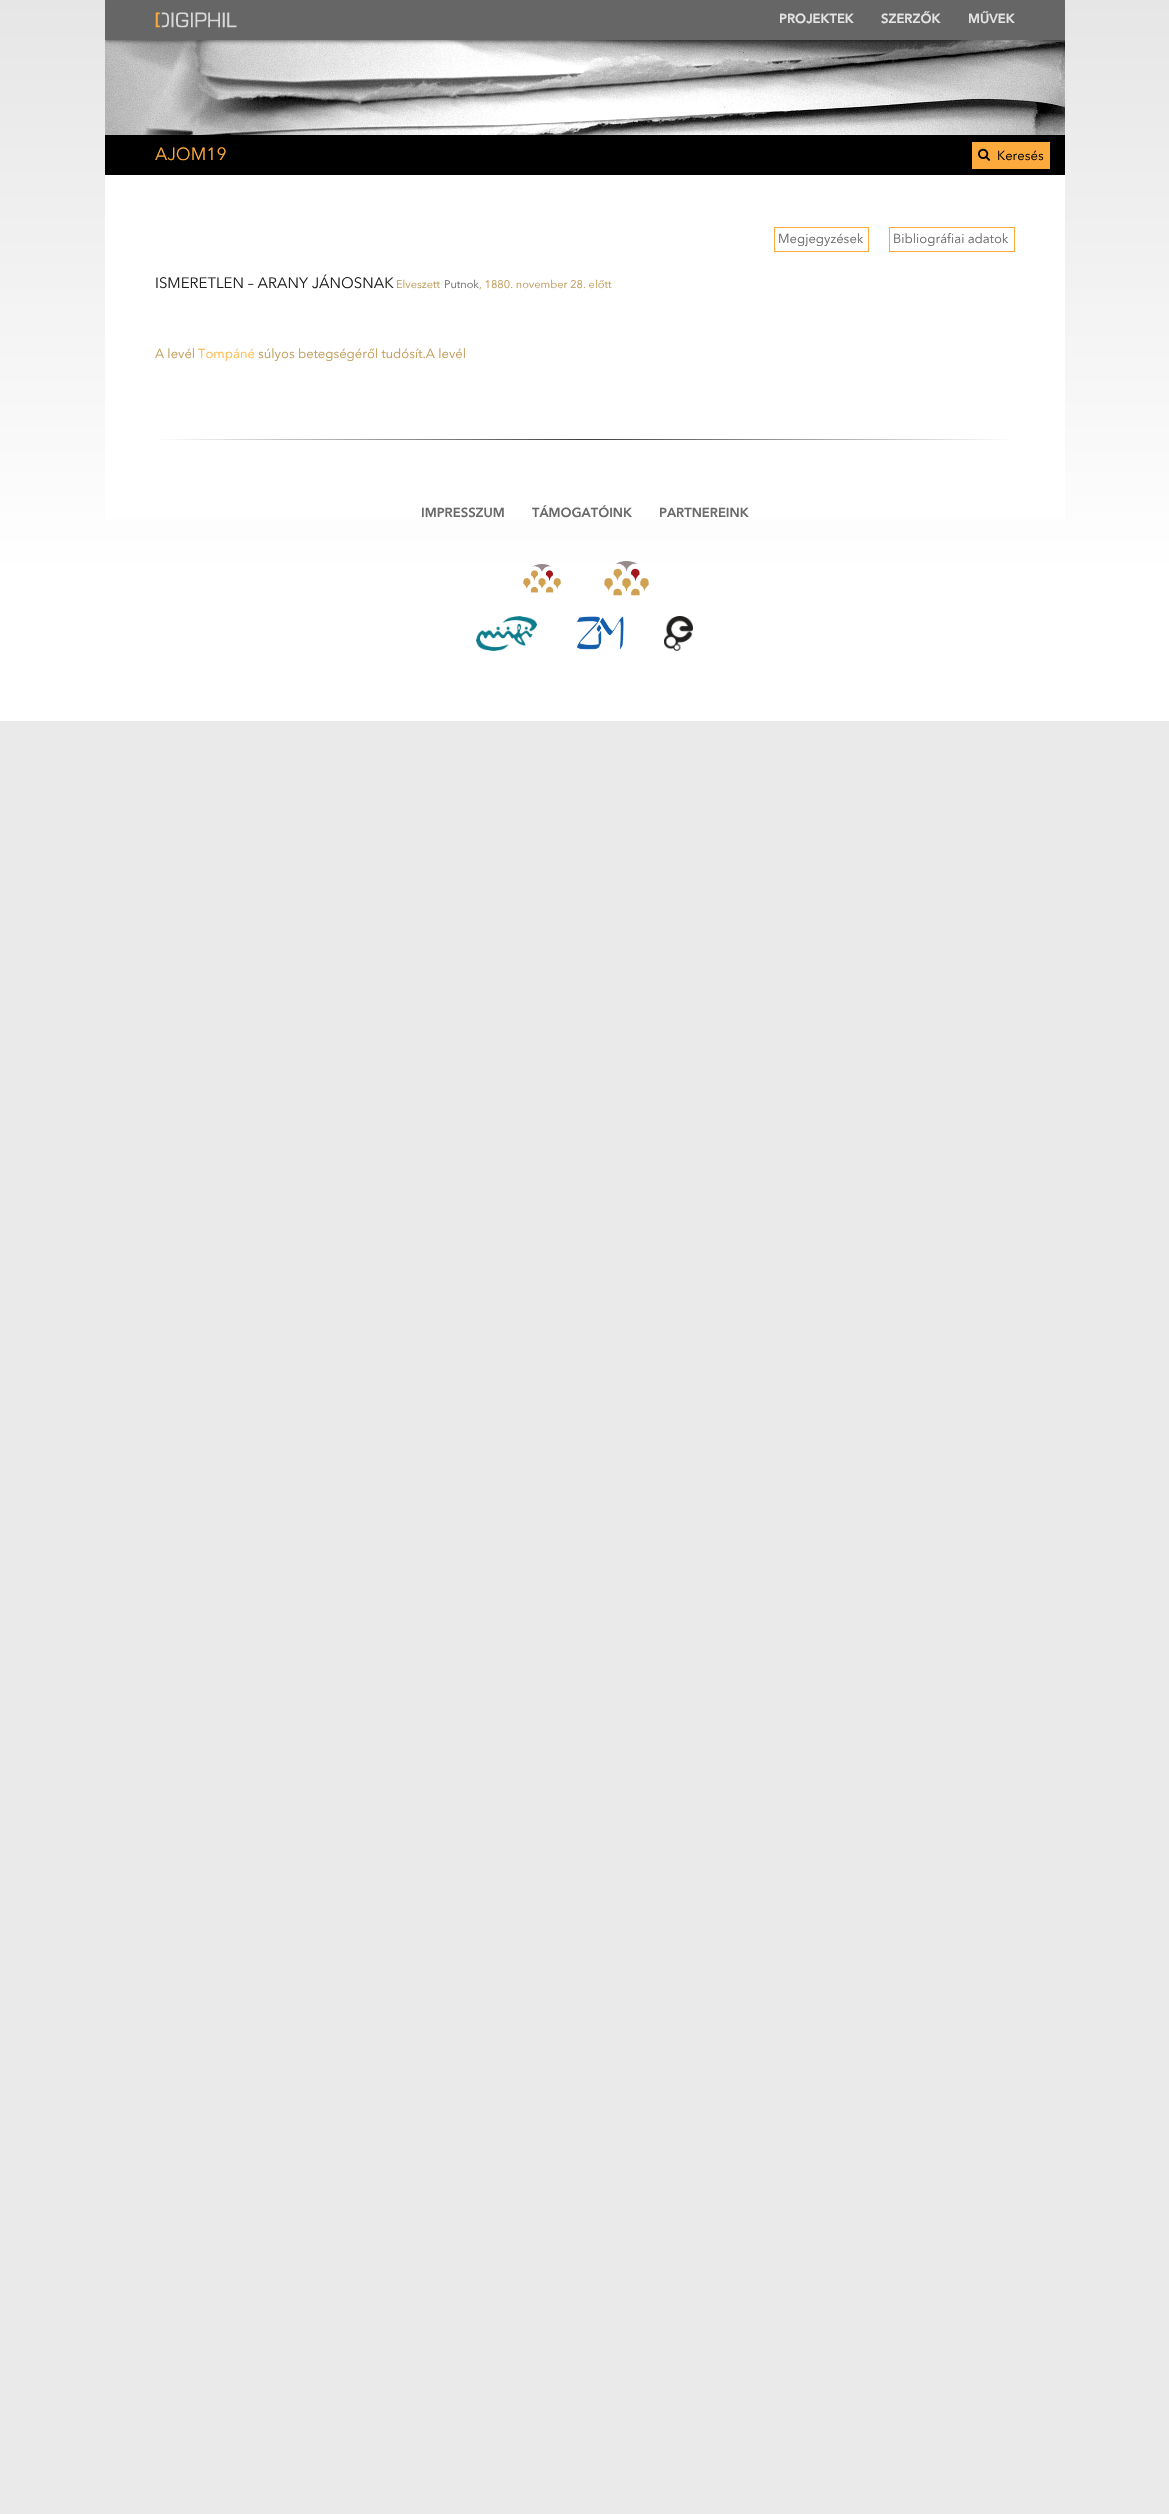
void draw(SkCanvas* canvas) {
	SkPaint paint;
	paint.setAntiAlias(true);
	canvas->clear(0xffeaeaea);
	{
		const SkColor colors[] = {0xffe6e6e6, 0xffffffff};
		const float stops[] = {0, 0.8};
		const SkPoint ends[] = {{585, 0}, {585, 721}};
		paint.setShader(SkGradientShader::MakeLinear(ends, colors, stops, 2, SkTileMode::kClamp));
		paint.setAlpha(255);
	}
	canvas->drawRect(SkRect::MakeXYWH(0, 0, 1169, 721), paint);
	canvas->drawImageRect(SkImages::DeferredFromEncodedData(SkData::MakeFromFileName("img2.png")), SkRect::MakeXYWH(105, 40, 960, 95), SkSamplingOptions());
	canvas->save();
	canvas->clipRect(SkRect::MakeXYWH(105, 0, 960, 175));
	paint.setShader(nullptr);
	paint.setColor(0xbf000000);
	paint.setMaskFilter(SkMaskFilter::MakeBlur(kNormal_SkBlurStyle, 2.5));
	canvas->drawRect(SkRect::MakeXYWH(105, 0, 960, 40), paint);
	paint.setMaskFilter(nullptr);
	canvas->restore();
	paint.setColor(0xff666666);
	canvas->drawRect(SkRect::MakeXYWH(105, 0, 960, 40), paint);
	canvas->drawImageRect(SkImages::DeferredFromEncodedData(SkData::MakeFromFileName("img1.png")), SkRect::MakeXYWH(155, 12, 82, 16), SkSamplingOptions());
	SkFont f1(fontMgr->matchFamilyStyle("Avenir Next", SkFontStyle(600, SkFontStyle::kNormal_Width, SkFontStyle::kUpright_Slant)), 13);
	f1.setSubpixel(true);
	paint.setColor(0xffe4e4e4);
	canvas->drawString("PROJEKTEK", 779, 23, f1, paint);
	canvas->drawString("SZERZŐK", 881, 23, f1, paint);
	canvas->drawString("MŰVEK", 968, 23, f1, paint);
	paint.setColor(0xff000000);
	canvas->drawRect(SkRect::MakeXYWH(105, 135, 960, 40), paint);
	SkFont f2(fontMgr->matchFamilyStyle("Avenir Next", SkFontStyle::Normal()), 17.5);
	f2.setSubpixel(true);
	paint.setColor(0xfffcaa3b);
	canvas->drawString("AJOM19", 155, 160, f2, paint);
	canvas->drawRect(SkRect::MakeXYWH(972, 142, 78, 27), paint);
	canvas->drawImageRect(SkImages::DeferredFromEncodedData(SkData::MakeFromFileName("img3.png")), SkRect::MakeXYWH(978, 148, 12, 13), SkSamplingOptions());
	SkFont f3(fontMgr->matchFamilyStyle("Avenir Next", SkFontStyle::Normal()), 13);
	f3.setSubpixel(true);
	paint.setColor(0xff000000);
	canvas->drawString("Keresés", 997, 160, f3, paint);
	paint.setColor(0xffffffff);
	canvas->drawRect(SkRect::MakeXYWH(105, 175, 960, 344), paint);
	paint.setStroke(true);
	paint.setStrokeWidth(1);
	paint.setColor(0xfffcaa3b);
	canvas->drawRect(SkRect::MakeXYWH(774.5, 227.5, 94, 24), paint);
	paint.setStroke(false);
	paint.setColor(0xff6b6a6a);
	canvas->drawString("Megjegyzések", 778, 243, f3, paint);
	paint.setStroke(true);
	paint.setColor(0xfffcaa3b);
	canvas->drawRect(SkRect::MakeXYWH(889.5, 227.5, 125, 24), paint);
	paint.setStroke(false);
	paint.setColor(0xff6b6a6a);
	canvas->drawString("Bibliográfiai adatok", 893, 243, f3, paint);
	SkFont f4(fontMgr->matchFamilyStyle("Avenir Next", SkFontStyle::Normal()), 15);
	f4.setSubpixel(true);
	paint.setColor(0xff222222);
	canvas->drawString("ISMERETLEN – ARANY JÁNOSNAK", 155, 288, f4, paint);
	SkFont f5(fontMgr->matchFamilyStyle("Avenir Next", SkFontStyle::Normal()), 11);
	f5.setSubpixel(true);
	paint.setColor(0xffbf9b58);
	canvas->drawString("Elveszett", 396, 288, f5, paint);
	paint.setColor(0xff6b6a6a);
	canvas->drawString("Putnok", 444, 288, f5, paint);
	paint.setColor(0xffbf9b58);
	canvas->drawString(", 1880. november 28. előtt", 479, 288, f5, paint);
	canvas->drawString("A levél", 155, 358, f3, paint);
	paint.setColor(0xffffb94b);
	canvas->drawString("Tompáné", 198, 358, f3, paint);
	paint.setColor(0xffbf9b58);
	canvas->drawString("súlyos betegségéről tudósít.A levél", 258, 358, f3, paint);
	{
		const SkColor colors[] = {0xffffffff, 0xff404040, 0xffffffff};
		const float stops[] = {0, 0.5, 1};
		const SkPoint ends[] = {{155, 440}, {1015, 440}};
		paint.setShader(SkGradientShader::MakeLinear(ends, colors, stops, 3, SkTileMode::kClamp));
		paint.setAlpha(255);
	}
	canvas->drawRect(SkRect::MakeXYWH(155, 439, 860, 1), paint);
	paint.setShader(nullptr);
	paint.setColor(0xff6b6a6a);
	canvas->drawString("IMPRESSZUM", 421, 517, f1, paint);
	canvas->drawString("TÁMOGATÓINK", 532, 517, f1, paint);
	canvas->drawString("PARTNEREINK", 659, 517, f1, paint);
	canvas->drawImageRect(SkImages::DeferredFromEncodedData(SkData::MakeFromFileName("img4.png")), SkRect::MakeXYWH(523, 564, 38, 29), SkSamplingOptions());
	canvas->drawImageRect(SkImages::DeferredFromEncodedData(SkData::MakeFromFileName("img5.png")), SkRect::MakeXYWH(604, 561, 45, 35), SkSamplingOptions());
	canvas->drawImageRect(SkImages::DeferredFromEncodedData(SkData::MakeFromFileName("img6.png")), SkRect::MakeXYWH(476, 616, 61, 35), SkSamplingOptions());
	canvas->drawImageRect(SkImages::DeferredFromEncodedData(SkData::MakeFromFileName("img7.png")), SkRect::MakeXYWH(577, 616, 47, 34), SkSamplingOptions());
	canvas->drawImageRect(SkImages::DeferredFromEncodedData(SkData::MakeFromFileName("img8.png")), SkRect::MakeXYWH(664, 616, 29, 35), SkSamplingOptions());
}
